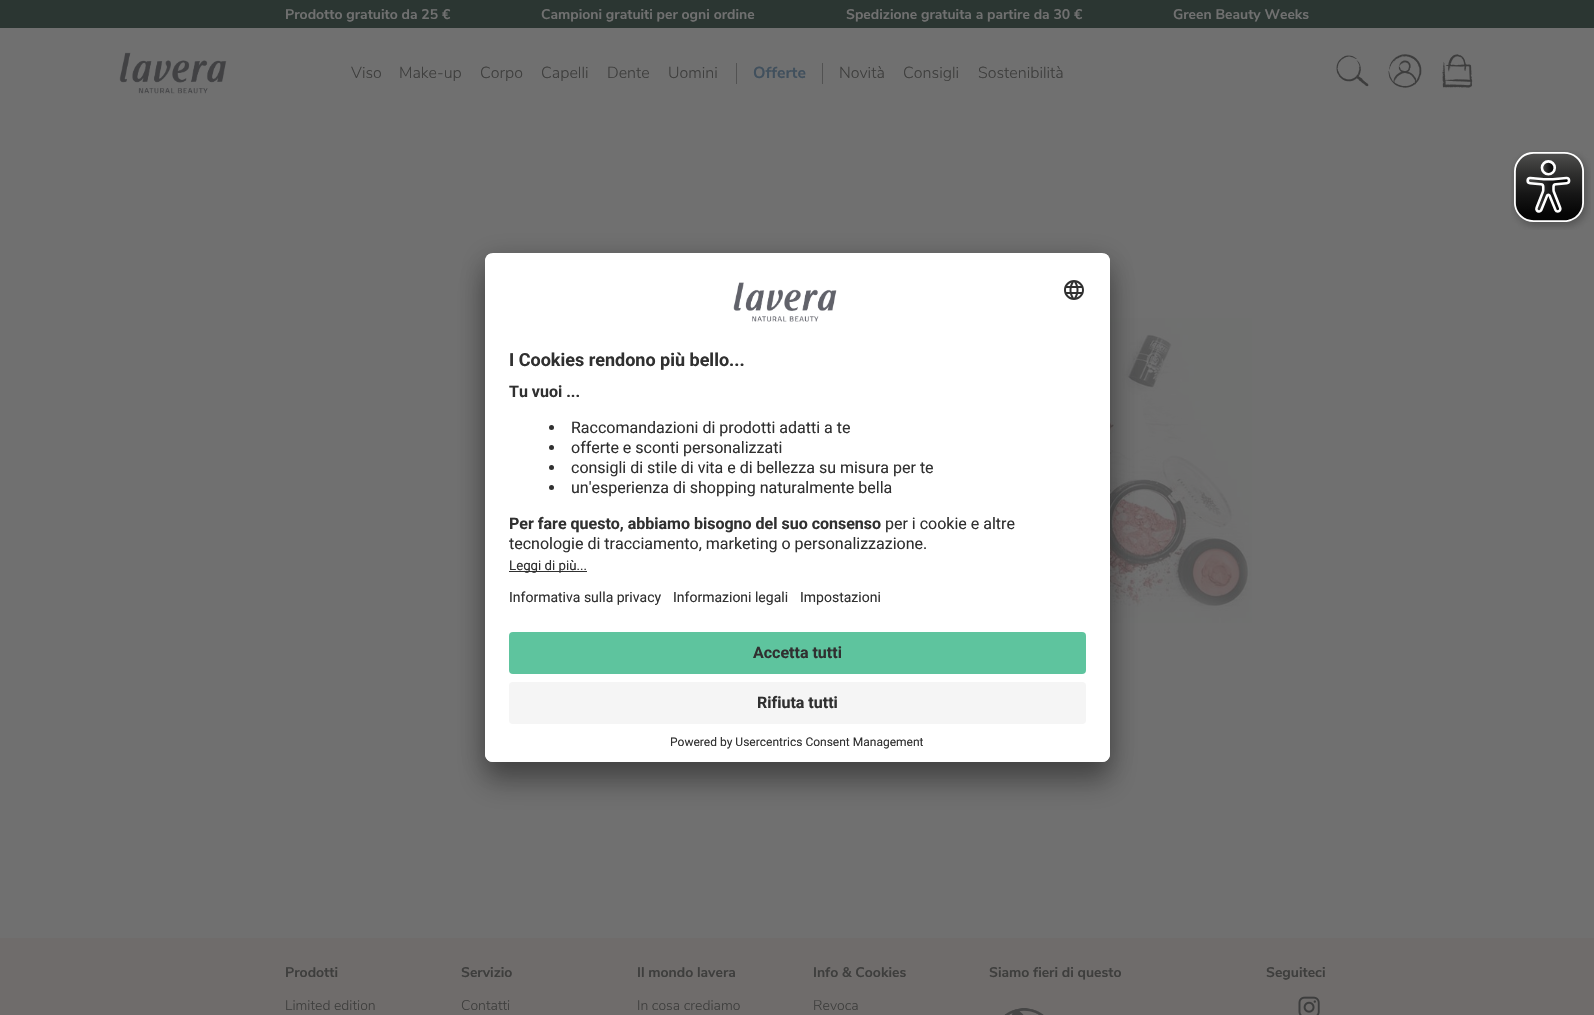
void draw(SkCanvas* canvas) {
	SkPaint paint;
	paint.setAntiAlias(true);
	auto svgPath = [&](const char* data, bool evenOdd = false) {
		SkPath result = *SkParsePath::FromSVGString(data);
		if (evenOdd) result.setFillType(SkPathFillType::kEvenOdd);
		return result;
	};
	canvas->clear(0xff707070);
	paint.setColor(0xff2b3632);
	canvas->drawRect(SkRect::MakeXYWH(0, 0, 1594, 28), paint);
	SkFont f1(fontMgr->matchFamilyStyle("Nunito Sans", SkFontStyle::Bold()), 14);
	f1.setSubpixel(true);
	paint.setColor(0xff707070);
	canvas->drawString("Prodotto gratuito da 25 €", 285, 19, f1, paint);
	canvas->drawString("Campioni gratuiti per ogni ordine", 541, 19, f1, paint);
	canvas->drawString("Spedizione gratuita a partire da 30 €", 846, 19, f1, paint);
	canvas->drawString("Green Beauty Weeks", 1173, 19, f1, paint);
	canvas->drawImageRect(SkImages::DeferredFromEncodedData(SkData::MakeFromFileName("img1.png")), SkRect::MakeXYWH(119, 52, 108, 42), SkSamplingOptions());
	SkFont f2(fontMgr->matchFamilyStyle("Nunito Sans", SkFontStyle(300, SkFontStyle::kNormal_Width, SkFontStyle::kUpright_Slant)), 16);
	f2.setSubpixel(true);
	paint.setColor(0xff3e3e3d);
	canvas->drawString("Viso", 351, 78, f2, paint);
	canvas->drawString("Make-up", 399, 78, f2, paint);
	canvas->drawString("Corpo", 480, 78, f2, paint);
	canvas->drawString("Capelli", 541, 78, f2, paint);
	canvas->drawString("Dente", 607, 78, f2, paint);
	canvas->drawString("Uomini", 668, 78, f2, paint);
	paint.setColor(0xff525252);
	canvas->drawRect(SkRect::MakeXYWH(736, 63, 1, 21), paint);
	SkFont f3(fontMgr->matchFamilyStyle("Nunito Sans", SkFontStyle::Bold()), 16);
	f3.setSubpixel(true);
	paint.setColor(0xff41505d);
	canvas->drawString("Offerte", 753, 78, f3, paint);
	paint.setColor(0xff525252);
	canvas->drawRect(SkRect::MakeXYWH(822, 63, 1, 21), paint);
	paint.setColor(0xff3e3e3d);
	canvas->drawString("Novità", 839, 78, f2, paint);
	canvas->drawString("Consigli", 903, 78, f2, paint);
	canvas->drawString("Sostenibilità", 978, 78, f2, paint);
	canvas->drawImageRect(SkImages::DeferredFromEncodedData(SkData::MakeFromFileName("img2.png")), SkRect::MakeXYWH(1336, 55, 33, 32), SkSamplingOptions());
	canvas->drawImageRect(SkImages::DeferredFromEncodedData(SkData::MakeFromFileName("img3.png")), SkRect::MakeXYWH(1388, 54, 34, 34), SkSamplingOptions());
	canvas->drawImageRect(SkImages::DeferredFromEncodedData(SkData::MakeFromFileName("img4.png")), SkRect::MakeXYWH(1442, 54, 31, 34), SkSamplingOptions());
	canvas->drawImageRect(SkImages::DeferredFromEncodedData(SkData::MakeFromFileName("img5.png")), SkRect::MakeXYWH(1110, 318, 142, 305), SkSamplingOptions());
	paint.setColor(0xff6f6c6b);
	canvas->drawRect(SkRect::MakeXYWH(0, 938, 1594, 77), paint);
	paint.setColor(0xff3e3e3d);
	canvas->drawString("Prodotti", 285, 977, f1, paint);
	SkFont f4(fontMgr->matchFamilyStyle("Nunito Sans", SkFontStyle(300, SkFontStyle::kNormal_Width, SkFontStyle::kUpright_Slant)), 14);
	f4.setSubpixel(true);
	canvas->drawString("Limited edition", 285, 1010, f4, paint);
	canvas->drawString("Servizio", 461, 977, f1, paint);
	canvas->drawString("Contatti", 461, 1010, f4, paint);
	canvas->drawString("Il mondo lavera", 637, 977, f1, paint);
	canvas->drawString("In cosa crediamo", 637, 1010, f4, paint);
	canvas->drawString("Info & Cookies", 813, 977, f1, paint);
	canvas->drawString("Revoca", 813, 1010, f4, paint);
	canvas->drawString("Siamo fieri di questo", 989, 977, f1, paint);
	canvas->drawImageRect(SkImages::DeferredFromEncodedData(SkData::MakeFromFileName("img6.png")), SkRect::MakeXYWH(1004, 1008, 40, 7), SkSamplingOptions());
	canvas->drawString("Seguiteci", 1266, 977, f1, paint);
	canvas->drawImageRect(SkImages::DeferredFromEncodedData(SkData::MakeFromFileName("img7.png")), SkRect::MakeXYWH(1298, 996, 22, 19), SkSamplingOptions());
	canvas->drawImageRect(SkImages::DeferredFromEncodedData(SkData::MakeFromFileName("img8.png")), SkRect::MakeXYWH(1511, 150, 80, 80), SkSamplingOptions());
	paint.setColor(0x4d000000);
	paint.setMaskFilter(SkMaskFilter::MakeBlur(kNormal_SkBlurStyle, 14));
	canvas->drawRoundRect(SkRect::MakeXYWH(485, 273, 625, 509), 8, 8, paint);
	paint.setMaskFilter(nullptr);
	paint.setColor(0x38000000);
	paint.setMaskFilter(SkMaskFilter::MakeBlur(kNormal_SkBlurStyle, 13));
	canvas->drawRoundRect(SkRect::MakeXYWH(485, 258, 625, 509), 8, 8, paint);
	paint.setMaskFilter(nullptr);
	paint.setColor(0xffffffff);
	canvas->drawRoundRect(SkRect::MakeXYWH(485, 253, 625, 509), 8, 8, paint);
	canvas->save();
	canvas->clipPath(svgPath("M493 253H1102C1106.5 253 1110 256.5 1110 261V754C1110 758.5 1106.5 762 1102 762H493C488.5 762 485 758.5 485 754V261C485 256.5 488.5 253 493 253Z"), true);
	canvas->clipPath(svgPath("M493 253H1102C1106.5 253 1110 256.5 1110 261V620H485V261C485 256.5 488.5 253 493 253Z"), true);
	canvas->drawRect(SkRect::MakeXYWH(485, 254, 625, 366), paint);
	canvas->restore();
	canvas->drawImageRect(SkImages::DeferredFromEncodedData(SkData::MakeFromFileName("img9.png")), SkRect::MakeXYWH(733, 282, 104, 40), SkSamplingOptions());
	canvas->drawImageRect(SkImages::DeferredFromEncodedData(SkData::MakeFromFileName("img10.png")), SkRect::MakeXYWH(1064, 280, 20, 20), SkSamplingOptions());
	SkFont f5(fontMgr->matchFamilyStyle("Roboto", SkFontStyle::Bold()), 18);
	f5.setSubpixel(true);
	paint.setColor(0xff303030);
	canvas->drawString("I Cookies rendono più bello...", 509, 366, f5, paint);
	canvas->save();
	canvas->clipRect(SkRect::MakeXYWH(509, 378, 577, 180));
	SkFont f6(fontMgr->matchFamilyStyle("Roboto", SkFontStyle::Bold()), 16);
	f6.setSubpixel(true);
	canvas->drawString("Tu vuoi ...", 509, 397, f6, paint);
	canvas->restore();
	canvas->drawCircle(551.5, 427.5, 2.5, paint);
	SkFont f7(fontMgr->matchFamilyStyle("Roboto", SkFontStyle::Normal()), 16);
	f7.setSubpixel(true);
	canvas->drawString("Raccomandazioni di prodotti adatti a te", 571, 433, f7, paint);
	canvas->drawCircle(551.5, 447.5, 2.5, paint);
	canvas->drawString("offerte e sconti personalizzati", 571, 453, f7, paint);
	canvas->drawCircle(551.5, 467.5, 2.5, paint);
	canvas->drawString("consigli di stile di vita e di bellezza su misura per te", 571, 473, f7, paint);
	canvas->drawCircle(551.5, 487.5, 2.5, paint);
	canvas->drawString("un'esperienza di shopping naturalmente bella", 571, 493, f7, paint);
	canvas->drawString("Per fare questo, abbiamo bisogno del suo consenso", 509, 529, f6, paint);
	canvas->drawString("per i cookie e altre", 885, 529, f7, paint);
	canvas->drawString("tecnologie di tracciamento, marketing o personalizzazione.", 509, 549, f7, paint);
	canvas->drawRect(SkRect::MakeXYWH(509, 571, 78, 1), paint);
	SkFont f8(fontMgr->matchFamilyStyle("Roboto", SkFontStyle::Normal()), 13.25);
	f8.setSubpixel(true);
	canvas->drawString("Leggi di più...", 509, 570, f8, paint);
	SkFont f9(fontMgr->matchFamilyStyle("Roboto", SkFontStyle::Normal()), 14);
	f9.setSubpixel(true);
	canvas->drawString("Informativa sulla privacy", 509, 602, f9, paint);
	canvas->drawString("Informazioni legali", 673, 602, f9, paint);
	canvas->drawString("Impostazioni", 800, 602, f9, paint);
	paint.setColor(0xffffffff);
	canvas->drawPath(svgPath("M485 620H1110V754C1110 758.5 1106.5 762 1102 762H493C488.5 762 485 758.5 485 754Z"), paint);
	paint.setColor(0xff5ec49e);
	canvas->drawRoundRect(SkRect::MakeXYWH(509, 632, 577, 42), 4, 4, paint);
	paint.setColor(0xff303030);
	canvas->drawString("Accetta tutti", 753, 658, f6, paint);
	paint.setColor(0xfff5f5f5);
	canvas->drawRoundRect(SkRect::MakeXYWH(509, 682, 577, 42), 4, 4, paint);
	paint.setColor(0xff303030);
	canvas->drawString("Rifiuta tutti", 757, 708, f6, paint);
	SkFont f10(fontMgr->matchFamilyStyle("Roboto", SkFontStyle::Normal()), 12);
	f10.setSubpixel(true);
	canvas->drawString("Powered by Usercentrics Consent Management", 670, 746, f10, paint);
}
